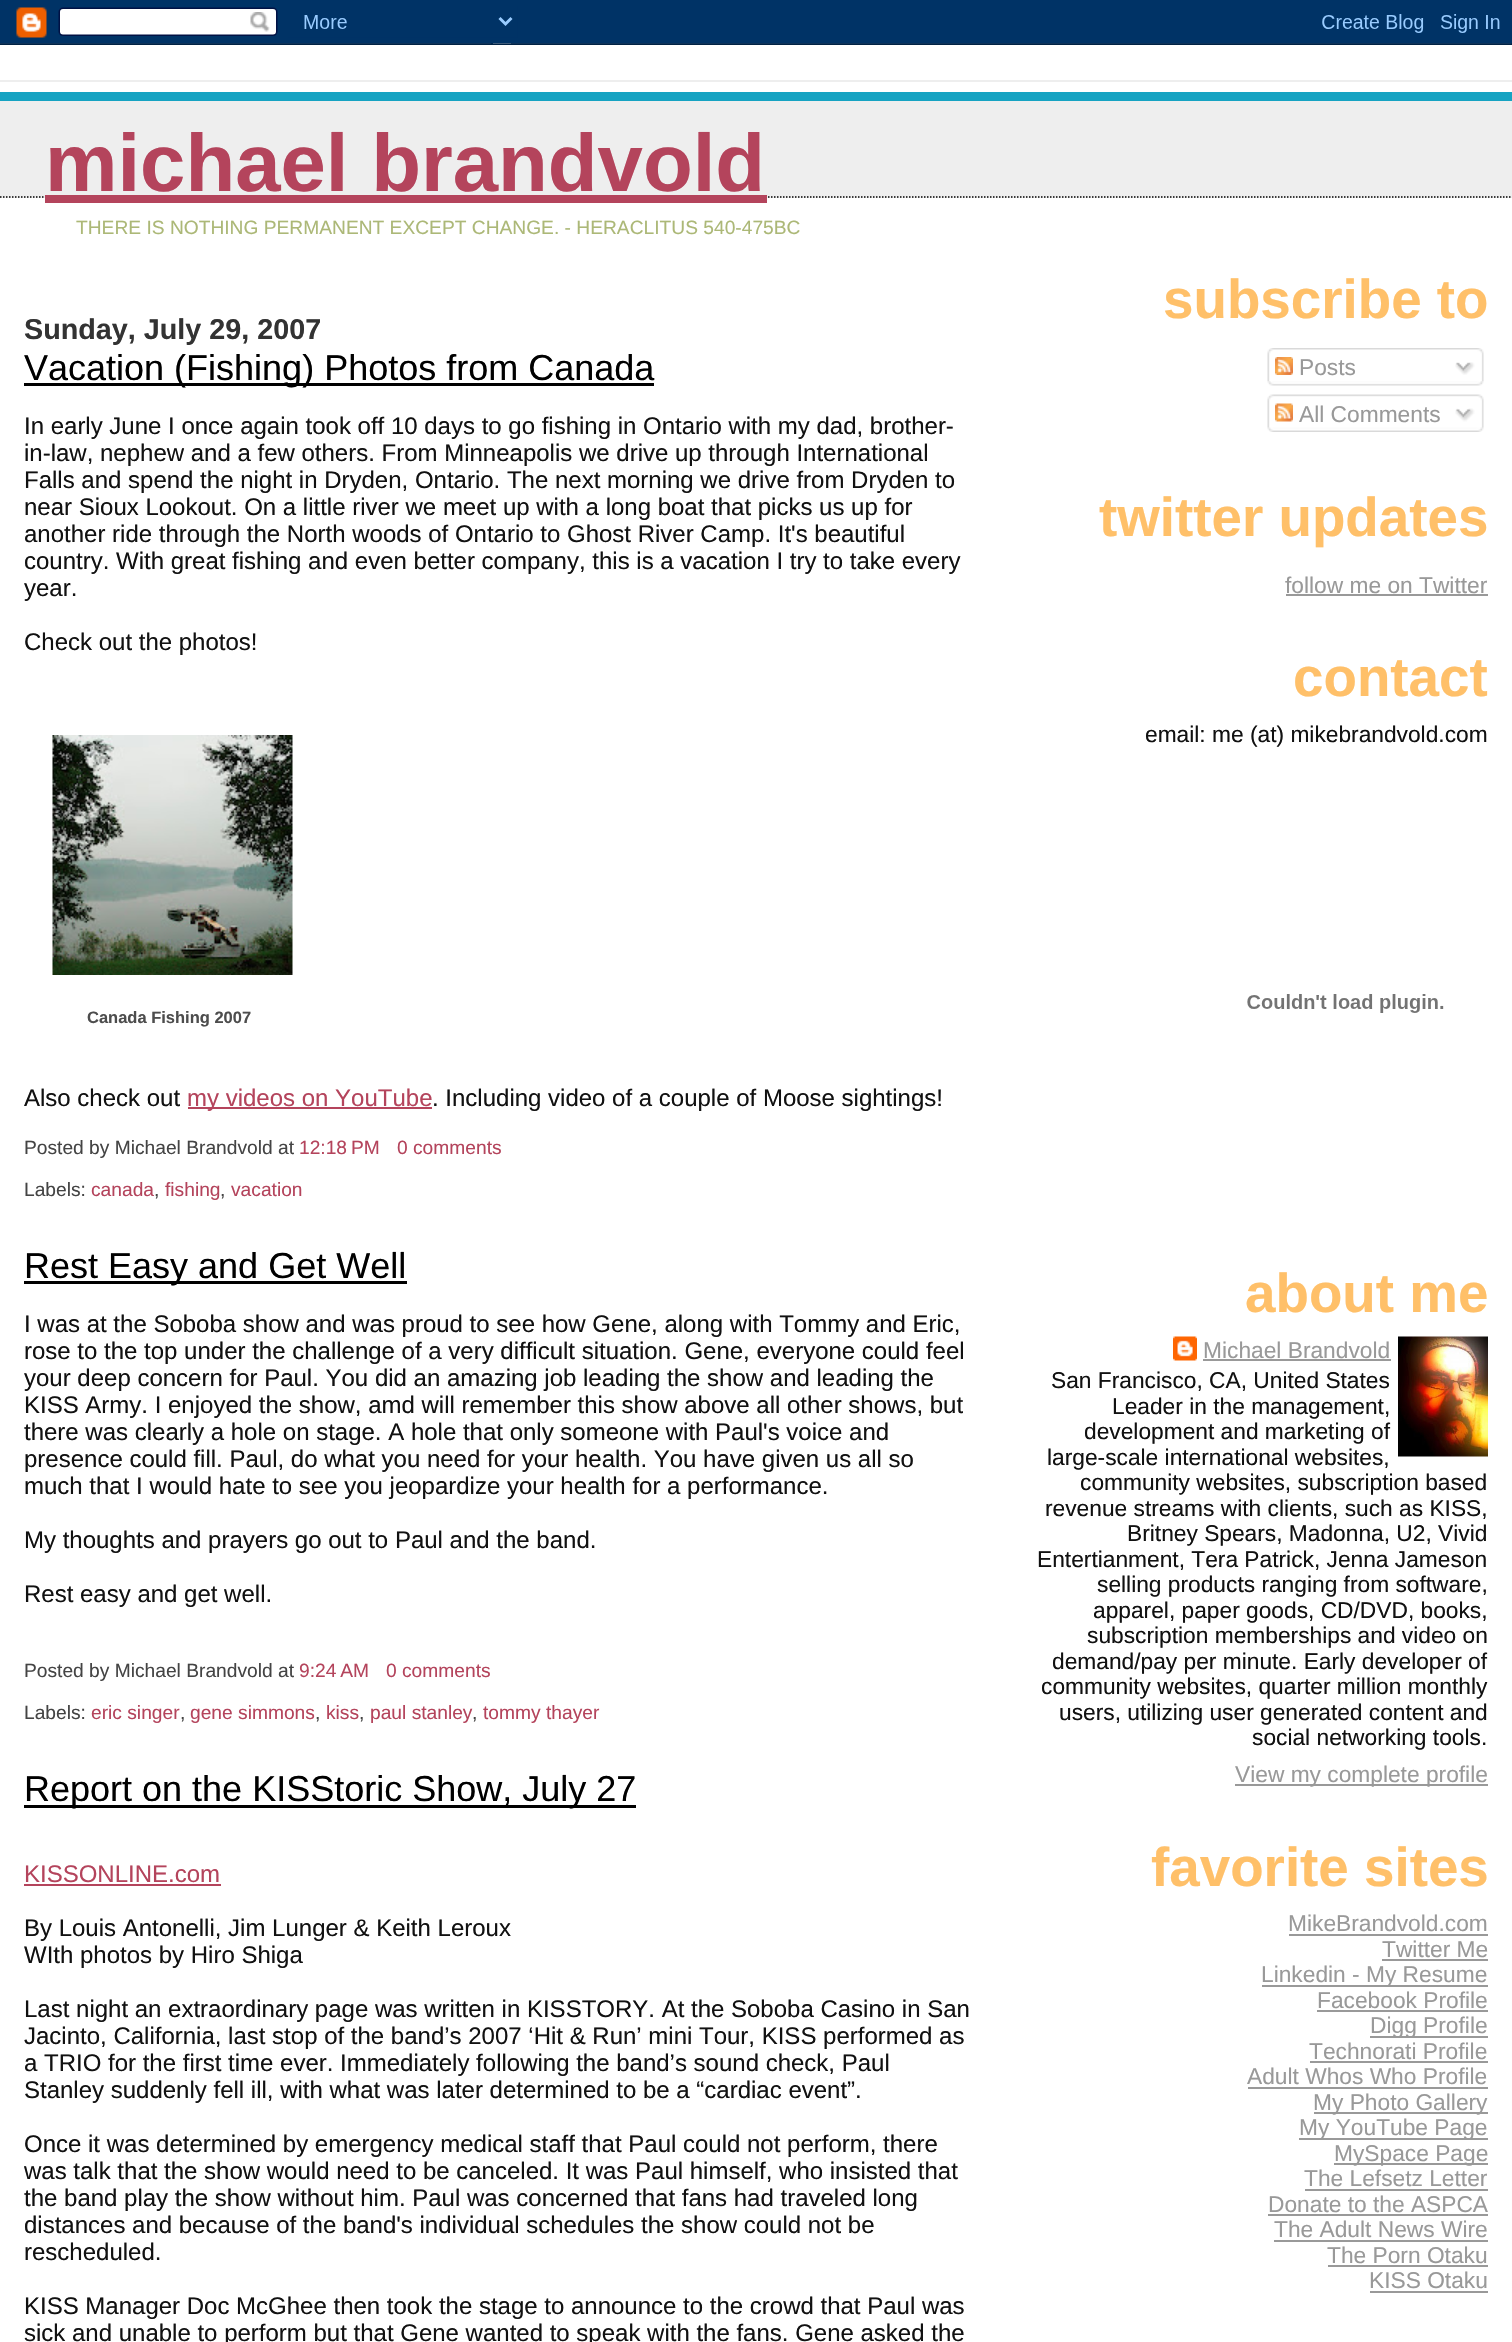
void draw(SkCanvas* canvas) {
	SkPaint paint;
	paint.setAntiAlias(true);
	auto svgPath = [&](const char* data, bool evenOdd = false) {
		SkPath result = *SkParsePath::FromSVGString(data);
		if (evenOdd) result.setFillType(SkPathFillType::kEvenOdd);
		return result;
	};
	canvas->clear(0xffffffff);
	canvas->drawImageRect(SkImages::DeferredFromEncodedData(SkData::MakeFromFileName("img1.png")), SkRect::MakeXYWH(0, 0, 1512, 45), SkSamplingOptions());
	paint.setColor(0xffeeeeee);
	canvas->drawRect(SkRect::MakeXYWH(0, 80, 1512, 2), paint);
	canvas->drawRect(SkRect::MakeXYWH(0, 101, 1512, 97), paint);
	paint.setColor(0xff16a3c2);
	canvas->drawRect(SkRect::MakeXYWH(0, 92, 1512, 9), paint);
	paint.setStroke(true);
	paint.setStrokeWidth(1.5);
	paint.setColor(0xff000000);
	paint.setPathEffect(SkDashPathEffect::Make({{1.5f, 1.5f}}, 0));
	canvas->drawPath(svgPath("M0 197H1512"), paint);
	paint.setPathEffect(nullptr);
	SkFont f1(fontMgr->matchFamilyStyle("Liberation Sans", SkFontStyle::Bold()), 81.5);
	f1.setSubpixel(true);
	paint.setStroke(false);
	paint.setColor(0xffb4445c);
	canvas->drawString("michael brandvold", 45, 191, f1, paint);
	canvas->drawRect(SkRect::MakeXYWH(45, 195, 722, 8), paint);
	SkFont f2(fontMgr->matchFamilyStyle("Liberation Sans", SkFontStyle::Normal()), 19.2);
	f2.setSubpixel(true);
	paint.setColor(0xffacb877);
	canvas->drawString("THERE IS NOTHING PERMANENT EXCEPT CHANGE. - HERACLITUS 540-475BC", 76, 234, f2, paint);
	SkFont f3(fontMgr->matchFamilyStyle("Liberation Sans", SkFontStyle::Bold()), 28.75);
	f3.setSubpixel(true);
	paint.setColor(0xff333333);
	canvas->drawString("Sunday, July 29, 2007", 24, 339, f3, paint);
	paint.setColor(0xff000000);
	canvas->drawRect(SkRect::MakeXYWH(24, 383, 630, 3), paint);
	SkFont f4(fontMgr->matchFamilyStyle("Liberation Sans", SkFontStyle::Normal()), 36);
	f4.setSubpixel(true);
	canvas->drawString("Vacation (Fishing) Photos from Canada", 24, 380, f4, paint);
	SkFont f5(fontMgr->matchFamilyStyle("Liberation Sans", SkFontStyle::Normal()), 24);
	f5.setSubpixel(true);
	paint.setColor(0xff111111);
	canvas->drawString("In early June I once again took off 10 days to go fishing in Ontario with my dad, brother-", 24, 434, f5, paint);
	canvas->drawString("in-law, nephew and a few others. From Minneapolis we drive up through International", 24, 461, f5, paint);
	canvas->drawString("Falls and spend the night in Dryden, Ontario. The next morning we drive from Dryden to", 24, 488, f5, paint);
	canvas->drawString("near Sioux Lookout. On a little river we meet up with a long boat that picks us up for", 24, 515, f5, paint);
	canvas->drawString("another ride through the North woods of Ontario to Ghost River Camp. It's beautiful", 24, 542, f5, paint);
	canvas->drawString("country. With great fishing and even better company, this is a vacation I try to take every", 24, 569, f5, paint);
	canvas->drawString("year.", 24, 596, f5, paint);
	canvas->drawString("Check out the photos!", 24, 650, f5, paint);
	canvas->drawImageRect(SkImages::DeferredFromEncodedData(SkData::MakeFromFileName("img2.png")), SkRect::MakeXYWH(52, 735, 241, 240), SkSamplingOptions());
	SkFont f6(fontMgr->matchFamilyStyle("Liberation Sans", SkFontStyle::Bold()), 16.5);
	f6.setSubpixel(true);
	paint.setColor(0xff4d4d4d);
	canvas->drawString("Canada Fishing 2007", 87, 1023, f6, paint);
	paint.setColor(0xff111111);
	canvas->drawString("Also check out", 24, 1106, f5, paint);
	paint.setColor(0xffb4445c);
	canvas->drawRect(SkRect::MakeXYWH(188, 1107, 244, 2), paint);
	canvas->drawString("my videos on YouTube", 187, 1106, f5, paint);
	paint.setColor(0xff111111);
	canvas->drawString(". Including video of a couple of Moose sightings!", 432, 1106, f5, paint);
	paint.setColor(0xff444444);
	canvas->drawString("Posted by Michael Brandvold at", 24, 1154, f2, paint);
	paint.setColor(0xffb4445c);
	canvas->drawString("12:18 PM", 299, 1154, f2, paint);
	canvas->drawString("0 comments", 397, 1154, f2, paint);
	paint.setColor(0xff444444);
	canvas->drawString("Labels:", 24, 1196, f2, paint);
	paint.setColor(0xffb4445c);
	canvas->drawString("canada", 91, 1196, f2, paint);
	paint.setColor(0xff444444);
	canvas->drawString(",", 154, 1196, f2, paint);
	paint.setColor(0xffb4445c);
	canvas->drawString("fishing", 165, 1196, f2, paint);
	paint.setColor(0xff444444);
	canvas->drawString(",", 220, 1196, f2, paint);
	paint.setColor(0xffb4445c);
	canvas->drawString("vacation", 231, 1196, f2, paint);
	paint.setColor(0xff000000);
	canvas->drawRect(SkRect::MakeXYWH(24, 1281, 383, 3), paint);
	canvas->drawString("Rest Easy and Get Well", 24, 1278, f4, paint);
	paint.setColor(0xff111111);
	canvas->drawString("I was at the Soboba show and was proud to see how Gene, along with Tommy and Eric,", 24, 1332, f5, paint);
	canvas->drawString("rose to the top under the challenge of a very difficult situation. Gene, everyone could feel", 24, 1359, f5, paint);
	canvas->drawString("your deep concern for Paul. You did an amazing job leading the show and leading the", 24, 1386, f5, paint);
	canvas->drawString("KISS Army. I enjoyed the show, amd will remember this show above all other shows, but", 24, 1413, f5, paint);
	canvas->drawString("there was clearly a hole on stage. A hole that only someone with Paul's voice and", 24, 1440, f5, paint);
	canvas->drawString("presence could fill. Paul, do what you need for your health. You have given us all so", 24, 1467, f5, paint);
	canvas->drawString("much that I would hate to see you jeopardize your health for a performance.", 24, 1494, f5, paint);
	canvas->drawString("My thoughts and prayers go out to Paul and the band.", 24, 1548, f5, paint);
	canvas->drawString("Rest easy and get well.", 24, 1602, f5, paint);
	paint.setColor(0xff444444);
	canvas->drawString("Posted by Michael Brandvold at", 24, 1677, f2, paint);
	paint.setColor(0xffb4445c);
	canvas->drawString("9:24 AM", 299, 1677, f2, paint);
	canvas->drawString("0 comments", 386, 1677, f2, paint);
	paint.setColor(0xff444444);
	canvas->drawString("Labels:", 24, 1719, f2, paint);
	paint.setColor(0xffb4445c);
	canvas->drawString("eric singer", 91, 1719, f2, paint);
	paint.setColor(0xff444444);
	canvas->drawString(",", 180, 1719, f2, paint);
	paint.setColor(0xffb4445c);
	canvas->drawString("gene simmons", 190, 1719, f2, paint);
	paint.setColor(0xff444444);
	canvas->drawString(",", 315, 1719, f2, paint);
	paint.setColor(0xffb4445c);
	canvas->drawString("kiss", 326, 1719, f2, paint);
	paint.setColor(0xff444444);
	canvas->drawString(",", 359, 1719, f2, paint);
	paint.setColor(0xffb4445c);
	canvas->drawString("paul stanley", 370, 1719, f2, paint);
	paint.setColor(0xff444444);
	canvas->drawString(",", 472, 1719, f2, paint);
	paint.setColor(0xffb4445c);
	canvas->drawString("tommy thayer", 483, 1719, f2, paint);
	paint.setColor(0xff000000);
	canvas->drawRect(SkRect::MakeXYWH(24, 1805, 612, 3), paint);
	canvas->drawString("Report on the KISStoric Show, July 27", 24, 1801, f4, paint);
	paint.setColor(0xffb4445c);
	canvas->drawString("KISSONLINE.com", 24, 1882, f5, paint);
	canvas->drawRect(SkRect::MakeXYWH(24, 1884, 197, 2), paint);
	paint.setColor(0xff111111);
	canvas->drawString("By Louis Antonelli, Jim Lunger & Keith Leroux", 24, 1936, f5, paint);
	canvas->drawString("WIth photos by Hiro Shiga", 24, 1963, f5, paint);
	canvas->drawString("Last night an extraordinary page was written in KISSTORY. At the Soboba Casino in San", 24, 2017, f5, paint);
	canvas->drawString("Jacinto, California, last stop of the band’s 2007 ‘Hit & Run’ mini Tour, KISS performed as", 24, 2044, f5, paint);
	canvas->drawString("a TRIO for the first time ever. Immediately following the band’s sound check, Paul", 24, 2071, f5, paint);
	canvas->drawString("Stanley suddenly fell ill, with what was later determined to be a “cardiac event”.", 24, 2098, f5, paint);
	canvas->drawString("Once it was determined by emergency medical staff that Paul could not perform, there", 24, 2152, f5, paint);
	canvas->drawString("was talk that the show would need to be canceled. It was Paul himself, who insisted that", 24, 2179, f5, paint);
	canvas->drawString("the band play the show without him. Paul was concerned that fans had traveled long", 24, 2206, f5, paint);
	canvas->drawString("distances and because of the band's individual schedules the show could not be", 24, 2233, f5, paint);
	canvas->drawString("rescheduled.", 24, 2260, f5, paint);
	canvas->drawString("KISS Manager Doc McGhee then took the stage to announce to the crowd that Paul was", 24, 2314, f5, paint);
	canvas->drawString("sick and unable to perform but that Gene wanted to speak with the fans. Gene asked the", 24, 2341, f5, paint);
	SkFont f7(fontMgr->matchFamilyStyle("Liberation Sans", SkFontStyle::Bold()), 54.75);
	f7.setSubpixel(true);
	paint.setColor(0xffffc069);
	canvas->drawString("subscribe to", 1163, 318, f7, paint);
	canvas->drawImageRect(SkImages::DeferredFromEncodedData(SkData::MakeFromFileName("img3.png")), SkRect::MakeXYWH(1267, 348, 217, 33), SkSamplingOptions());
	canvas->drawImageRect(SkImages::DeferredFromEncodedData(SkData::MakeFromFileName("img4.png")), SkRect::MakeXYWH(1275, 357, 18, 18), SkSamplingOptions());
	SkFont f8(fontMgr->matchFamilyStyle("Liberation Sans", SkFontStyle::Normal()), 22.75);
	f8.setSubpixel(true);
	paint.setColor(0xff999999);
	canvas->drawString("Posts", 1299, 375, f8, paint);
	canvas->drawImageRect(SkImages::DeferredFromEncodedData(SkData::MakeFromFileName("img5.png")), SkRect::MakeXYWH(1455, 362, 20, 13), SkSamplingOptions());
	canvas->drawImageRect(SkImages::DeferredFromEncodedData(SkData::MakeFromFileName("img6.png")), SkRect::MakeXYWH(1267, 381, 217, 5), SkSamplingOptions());
	canvas->drawImageRect(SkImages::DeferredFromEncodedData(SkData::MakeFromFileName("img7.png")), SkRect::MakeXYWH(1267, 394, 217, 34), SkSamplingOptions());
	canvas->drawImageRect(SkImages::DeferredFromEncodedData(SkData::MakeFromFileName("img8.png")), SkRect::MakeXYWH(1275, 403, 18, 19), SkSamplingOptions());
	canvas->drawString("All Comments", 1299, 422, f8, paint);
	canvas->drawImageRect(SkImages::DeferredFromEncodedData(SkData::MakeFromFileName("img9.png")), SkRect::MakeXYWH(1455, 408, 20, 14), SkSamplingOptions());
	canvas->drawImageRect(SkImages::DeferredFromEncodedData(SkData::MakeFromFileName("img10.png")), SkRect::MakeXYWH(1267, 427, 217, 5), SkSamplingOptions());
	paint.setColor(0xffffc069);
	canvas->drawString("twitter updates", 1099, 536, f7, paint);
	paint.setColor(0xff999999);
	canvas->drawString("follow me on Twitter", 1285, 593, f8, paint);
	canvas->drawRect(SkRect::MakeXYWH(1286, 594, 202, 2), paint);
	paint.setColor(0xffffc069);
	canvas->drawString("contact", 1293, 696, f7, paint);
	paint.setColor(0xff111111);
	canvas->drawString("email: me (at) mikebrandvold.com", 1145, 742, f8, paint);
	canvas->drawImageRect(SkImages::DeferredFromEncodedData(SkData::MakeFromFileName("img11.png")), SkRect::MakeXYWH(1247, 994, 197, 19), SkSamplingOptions());
	paint.setColor(0xffffc069);
	canvas->drawString("about me", 1245, 1312, f7, paint);
	canvas->drawImageRect(SkImages::DeferredFromEncodedData(SkData::MakeFromFileName("img12.png")), SkRect::MakeXYWH(1398, 1336, 90, 121), SkSamplingOptions());
	canvas->drawImageRect(SkImages::DeferredFromEncodedData(SkData::MakeFromFileName("img13.png")), SkRect::MakeXYWH(1173, 1336, 24, 25), SkSamplingOptions());
	paint.setColor(0xff999999);
	canvas->drawString("Michael Brandvold", 1203, 1358, f8, paint);
	canvas->drawRect(SkRect::MakeXYWH(1203, 1359, 188, 2), paint);
	paint.setColor(0xff111111);
	canvas->drawString("San Francisco, CA, United States", 1051, 1388, f8, paint);
	canvas->drawString("Leader in the management,", 1112, 1414, f8, paint);
	canvas->drawString("development and marketing of", 1084, 1439, f8, paint);
	canvas->drawString("large-scale international websites,", 1047, 1465, f8, paint);
	canvas->drawString("community websites, subscription based", 1080, 1490, f8, paint);
	canvas->drawString("revenue streams with clients, such as KISS,", 1045, 1516, f8, paint);
	canvas->drawString("Britney Spears, Madonna, U2, Vivid", 1127, 1541, f8, paint);
	canvas->drawString("Entertianment, Tera Patrick, Jenna Jameson", 1037, 1567, f8, paint);
	canvas->drawString("selling products ranging from software,", 1097, 1592, f8, paint);
	canvas->drawString("apparel, paper goods, CD/DVD, books,", 1093, 1618, f8, paint);
	canvas->drawString("subscription memberships and video on", 1087, 1643, f8, paint);
	canvas->save();
	canvas->clipRect(SkRect::MakeXYWH(1020, 269, 468, 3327));
	canvas->drawString("demand/pay per minute. Early developer of", 1052, 1669, f8, paint);
	canvas->restore();
	canvas->drawString("community websites, quarter million monthly", 1041, 1694, f8, paint);
	canvas->drawString("users, utilizing user generated content and", 1059, 1720, f8, paint);
	canvas->drawString("social networking tools.", 1252, 1745, f8, paint);
	paint.setColor(0xff999999);
	canvas->drawRect(SkRect::MakeXYWH(1235, 1784, 253, 2), paint);
	canvas->drawString("View my complete profile", 1235, 1782, f8, paint);
	paint.setColor(0xffffc069);
	canvas->drawString("favorite sites", 1151, 1886, f7, paint);
	paint.setColor(0xff999999);
	canvas->drawString("MikeBrandvold.com", 1288, 1931, f8, paint);
	canvas->drawRect(SkRect::MakeXYWH(1289, 1934, 199, 2), paint);
	canvas->drawString("Twitter Me", 1382, 1957, f8, paint);
	canvas->drawRect(SkRect::MakeXYWH(1382, 1959, 106, 2), paint);
	canvas->drawRect(SkRect::MakeXYWH(1262, 1985, 226, 2), paint);
	canvas->drawString("Linkedin - My Resume", 1261, 1982, f8, paint);
	canvas->drawString("Facebook Profile", 1317, 2008, f8, paint);
	canvas->drawRect(SkRect::MakeXYWH(1317, 2010, 171, 2), paint);
	canvas->drawRect(SkRect::MakeXYWH(1370, 2036, 118, 2), paint);
	canvas->drawString("Digg Profile", 1370, 2033, f8, paint);
	canvas->drawString("Technorati Profile", 1309, 2059, f8, paint);
	canvas->drawRect(SkRect::MakeXYWH(1310, 2061, 178, 2), paint);
	canvas->drawString("Adult Whos Who Profile", 1247, 2084, f8, paint);
	canvas->drawRect(SkRect::MakeXYWH(1248, 2087, 240, 2), paint);
	canvas->drawRect(SkRect::MakeXYWH(1314, 2112, 174, 2), paint);
	canvas->drawString("My Photo Gallery", 1313, 2110, f8, paint);
	canvas->drawRect(SkRect::MakeXYWH(1299, 2138, 189, 2), paint);
	canvas->drawString("My YouTube Page", 1299, 2135, f8, paint);
	canvas->drawRect(SkRect::MakeXYWH(1334, 2163, 154, 2), paint);
	canvas->drawString("MySpace Page", 1334, 2161, f8, paint);
	canvas->drawString("The Lefsetz Letter", 1304, 2186, f8, paint);
	canvas->drawRect(SkRect::MakeXYWH(1305, 2189, 183, 2), paint);
	canvas->drawString("Donate to the ASPCA", 1268, 2212, f8, paint);
	canvas->drawRect(SkRect::MakeXYWH(1268, 2214, 220, 2), paint);
	canvas->drawString("The Adult News Wire", 1274, 2237, f8, paint);
	canvas->drawRect(SkRect::MakeXYWH(1274, 2240, 214, 2), paint);
	canvas->drawString("The Porn Otaku", 1327, 2263, f8, paint);
	canvas->drawRect(SkRect::MakeXYWH(1328, 2265, 160, 2), paint);
	canvas->drawString("KISS Otaku", 1369, 2288, f8, paint);
	canvas->drawRect(SkRect::MakeXYWH(1370, 2291, 118, 2), paint);
}
